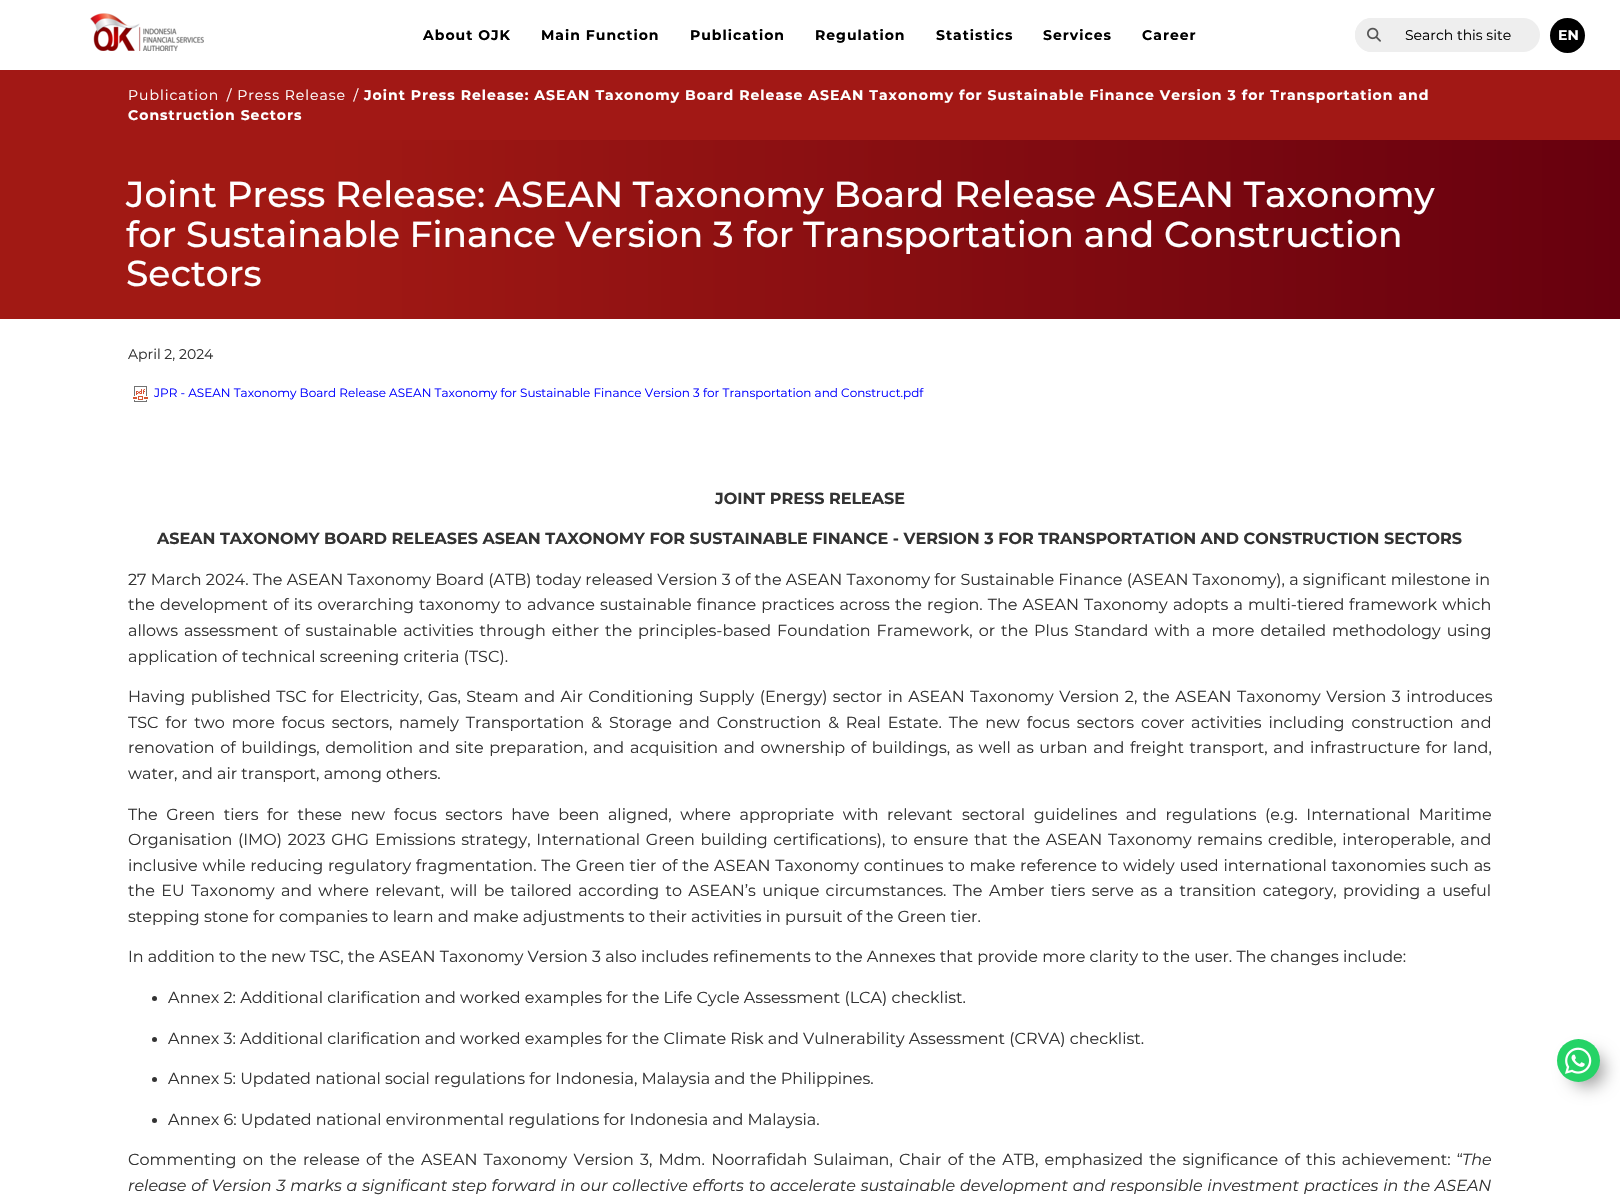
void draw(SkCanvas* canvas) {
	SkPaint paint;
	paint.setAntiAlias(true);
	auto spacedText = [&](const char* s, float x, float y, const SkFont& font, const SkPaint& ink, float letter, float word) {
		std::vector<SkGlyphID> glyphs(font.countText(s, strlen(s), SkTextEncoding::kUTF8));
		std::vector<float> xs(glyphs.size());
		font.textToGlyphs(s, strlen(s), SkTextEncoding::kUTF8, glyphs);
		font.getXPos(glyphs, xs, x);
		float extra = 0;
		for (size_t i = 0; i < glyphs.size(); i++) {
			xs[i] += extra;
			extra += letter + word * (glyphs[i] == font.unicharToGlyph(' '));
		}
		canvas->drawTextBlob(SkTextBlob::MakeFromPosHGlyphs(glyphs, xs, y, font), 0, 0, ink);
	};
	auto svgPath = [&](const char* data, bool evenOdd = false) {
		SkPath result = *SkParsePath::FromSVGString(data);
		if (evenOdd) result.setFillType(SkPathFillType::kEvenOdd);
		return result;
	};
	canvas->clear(0xffffffff);
	canvas->drawImageRect(SkImages::DeferredFromEncodedData(SkData::MakeFromFileName("img1.png")), SkRect::MakeXYWH(90, 13, 114, 38), SkSamplingOptions());
	SkFont f1(fontMgr->matchFamilyStyle("Montserrat", SkFontStyle::Bold()), 14);
	f1.setSubpixel(true);
	paint.setColor(0xff000000);
	spacedText("About OJK", 423, 40, f1, paint, 1, 0);
	spacedText("Main Function", 541, 40, f1, paint, 1, 0);
	spacedText("Publication", 690, 40, f1, paint, 1, 0);
	spacedText("Regulation", 815, 40, f1, paint, 1, 0);
	spacedText("Statistics", 936, 40, f1, paint, 1, 0);
	spacedText("Services", 1043, 40, f1, paint, 1, 0);
	spacedText("Career", 1142, 40, f1, paint, 1, 0);
	paint.setColor(0xffeeeeee);
	canvas->drawRoundRect(SkRect::MakeXYWH(1355, 18, 185, 34), 17, 17, paint);
	canvas->drawPath(svgPath("M1372 18H1393V52H1372C1362.5 52 1355 44.5 1355 35C1355 25.5 1362.5 18 1372 18Z"), paint);
	canvas->drawImageRect(SkImages::DeferredFromEncodedData(SkData::MakeFromFileName("img2.png")), SkRect::MakeXYWH(1367, 27, 14, 15), SkSamplingOptions());
	SkFont f2(fontMgr->matchFamilyStyle("Montserrat", SkFontStyle::Normal()), 14);
	f2.setSubpixel(true);
	paint.setColor(0xff000000);
	canvas->drawString("Search this site", 1405, 40, f2, paint);
	canvas->drawCircle(1567.5, 35.5, 17.5, paint);
	paint.setColor(0xffffffff);
	canvas->drawString("EN", 1558, 40, f1, paint);
	paint.setColor(0xffa21815);
	canvas->drawRect(SkRect::MakeXYWH(0, 70, 1620, 70), paint);
	paint.setColor(0xffffffff);
	spacedText("Publication  / Press Release  /", 128, 100, f2, paint, 1, 0);
	spacedText("Joint Press Release: ASEAN Taxonomy Board Release ASEAN Taxonomy for Sustainable Finance Version 3 for Transportation and", 364, 100, f1, paint, 1, 0);
	spacedText("Construction Sectors", 128, 120, f1, paint, 1, 0);
	{
		const SkColor colors[] = {0xff67000e, 0xffa11914};
		const float stops[] = {0, 0.8};
		const SkPoint ends[] = {{1620, 230}, {0, 229}};
		paint.setShader(SkGradientShader::MakeLinear(ends, colors, stops, 2, SkTileMode::kClamp));
		paint.setAlpha(255);
	}
	canvas->drawRect(SkRect::MakeXYWH(0, 140, 1620, 179), paint);
	SkFont f3(fontMgr->matchFamilyStyle("Montserrat", SkFontStyle(500, SkFontStyle::kNormal_Width, SkFontStyle::kUpright_Slant)), 36);
	f3.setSubpixel(true);
	paint.setShader(nullptr);
	paint.setColor(0xffffffff);
	canvas->drawString("Joint Press Release: ASEAN Taxonomy Board Release ASEAN Taxonomy", 126, 207, f3, paint);
	canvas->drawString("for Sustainable Finance Version 3 for Transportation and Construction", 126, 247, f3, paint);
	canvas->drawString("Sectors", 126, 286, f3, paint);
	paint.setColor(0xff333333);
	canvas->drawString("April 2, 2024", 128, 359, f2, paint);
	canvas->drawImageRect(SkImages::DeferredFromEncodedData(SkData::MakeFromFileName("img3.png")), SkRect::MakeXYWH(133, 386, 15, 16), SkSamplingOptions());
	SkFont f4(fontMgr->matchFamilyStyle("Montserrat", SkFontStyle::Normal()), 12);
	f4.setSubpixel(true);
	paint.setColor(0xff0000ff);
	canvas->drawString("JPR - ASEAN Taxonomy Board Release ASEAN Taxonomy for Sustainable Finance Version 3 for Transportation and Construct.pdf", 154, 397, f4, paint);
	SkFont f5(fontMgr->matchFamilyStyle("Montserrat", SkFontStyle::Bold()), 16);
	f5.setSubpixel(true);
	paint.setColor(0xff333333);
	canvas->drawString("JOINT PRESS RELEASE", 715, 504, f5, paint);
	canvas->drawString("ASEAN TAXONOMY BOARD RELEASES ASEAN TAXONOMY FOR SUSTAINABLE FINANCE - VERSION 3 FOR TRANSPORTATION AND CONSTRUCTION SECTORS", 157, 544, f5, paint);
	SkFont f6(fontMgr->matchFamilyStyle("Montserrat", SkFontStyle::Normal()), 16);
	f6.setSubpixel(true);
	canvas->drawString("27 March 2024. The ASEAN Taxonomy Board (ATB) today released Version 3 of the ASEAN Taxonomy for Sustainable Finance (ASEAN Taxonomy), a significant milestone in", 128, 585, f6, paint);
	spacedText("the development of its overarching taxonomy to", 128, 610, f6, paint, 0, 0.9);
	spacedText("advance sustainable finance practices across the region. The ASEAN Taxonomy adopts a multi-tiered", 527, 610, f6, paint, 0, 0.9);
	spacedText("framework which", 1349, 610, f6, paint, 0, 1);
	spacedText("allows assessment of sustainable activities through either the principles-based", 128, 636, f6, paint, 0, 1.75);
	spacedText("Foundation Framework, or the Plus Standard with a more detailed methodology using", 777, 636, f6, paint, 0, 1.75);
	canvas->drawString("application of technical screening criteria (TSC).", 128, 662, f6, paint);
	spacedText("Having published TSC for Electricity, Gas, Steam and Air Conditioning Supply (Energy) sector in ASEAN", 128, 702, f6, paint, 0, 1.25);
	spacedText("Taxonomy Version 2, the ASEAN Taxonomy Version 3 introduces", 970, 702, f6, paint, 0, 1.25);
	spacedText("TSC for two more focus sectors,", 128, 728, f6, paint, 0, 2.75);
	spacedText("namely Transportation & Storage and Construction & Real Estate. The new focus sectors cover", 399, 728, f6, paint, 0, 2.75);
	spacedText("activities including construction and", 1191, 728, f6, paint, 0, 2.75);
	spacedText("renovation of buildings, demolition and site preparation, and", 128, 753, f6, paint, 0, 1.4);
	spacedText("acquisition and ownership of buildings, as well as urban and freight transport, and infrastructure for", 630, 753, f6, paint, 0, 1.4);
	canvas->drawString("land,", 1453, 753, f6, paint);
	canvas->drawString("water, and air transport, among others.", 128, 779, f6, paint);
	spacedText("The Green tiers for these new focus sectors have been aligned, where appropriate with relevant", 128, 820, f6, paint, 0, 4.4);
	spacedText("sectoral guidelines and regulations (e.g. International Maritime", 962, 820, f6, paint, 0, 4.4);
	spacedText("Organisation (IMO) 2023 GHG", 128, 845, f6, paint, 0, 1.5);
	spacedText("Emissions strategy, International Green building certifications), to ensure that the ASEAN Taxonomy", 375, 845, f6, paint, 0, 1.5);
	spacedText("remains credible, interoperable, and", 1197, 845, f6, paint, 0, 1.5);
	spacedText("inclusive while reducing regulatory fragmentation. The Green tier", 128, 871, f6, paint, 0, 0.6);
	spacedText("of the ASEAN Taxonomy continues to make reference to widely used international taxonomies such as", 662, 871, f6, paint, 0, 0.6);
	spacedText("the EU Taxonomy and where relevant, will be tailored according to ASEAN’s unique circumstances. The", 128, 896, f6, paint, 0, 2.1);
	spacedText("Amber tiers serve as a transition category, providing a useful", 989, 896, f6, paint, 0, 2.1);
	canvas->drawString("stepping stone for companies to learn and make adjustments to their activities in pursuit of the Green tier.", 128, 922, f6, paint);
	canvas->drawString("In addition to the new TSC, the ASEAN Taxonomy Version 3 also includes refinements to the Annexes that provide more clarity to the user. The changes include:", 128, 962, f6, paint);
	canvas->drawCircle(154.5, 998.5, 2.5, paint);
	canvas->drawString("Annex 2: Additional clarification and worked examples for the Life Cycle Assessment (LCA) checklist.", 168, 1003, f6, paint);
	canvas->drawCircle(154.5, 1039.5, 2.5, paint);
	canvas->drawString("Annex 3: Additional clarification and worked examples for the Climate Risk and Vulnerability Assessment (CRVA) checklist.", 168, 1044, f6, paint);
	canvas->drawCircle(154.5, 1079.5, 2.5, paint);
	canvas->drawString("Annex 5: Updated national social regulations for Indonesia, Malaysia and the Philippines.", 168, 1084, f6, paint);
	canvas->drawCircle(154.5, 1120.5, 2.5, paint);
	canvas->drawString("Annex 6: Updated national environmental regulations for Indonesia and Malaysia.", 168, 1125, f6, paint);
	spacedText("Commenting on the release of the ASEAN Taxonomy Version 3, Mdm. Noorrafidah Sulaiman, Chair of", 128, 1165, f6, paint, 0, 2);
	spacedText("the ATB, emphasized the significance of this achievement: “", 969, 1165, f6, paint, 0, 2);
	SkFont f7(fontMgr->matchFamilyStyle("Montserrat", SkFontStyle::Italic()), 16);
	f7.setSubpixel(true);
	canvas->drawString("The", 1462, 1165, f7, paint);
	spacedText("release of Version 3 marks a significant", 128, 1191, f7, paint, 0, 0.6);
	spacedText("step forward in our collective efforts to accelerate sustainable development and responsible investment", 452, 1191, f7, paint, 0, 0.6);
	spacedText("practices in the ASEAN", 1304, 1191, f7, paint, 0, 0.6);
	paint.setColor(0x66000000);
	paint.setMaskFilter(SkMaskFilter::MakeBlur(kNormal_SkBlurStyle, 8.5));
	canvas->drawRoundRect(SkRect::MakeXYWH(1571, 1053, 33, 33), 16.5, 16.5, paint);
	paint.setMaskFilter(nullptr);
	paint.setColor(0xff25d366);
	canvas->drawCircle(1578.5, 1060.5, 21.5, paint);
	canvas->drawImageRect(SkImages::DeferredFromEncodedData(SkData::MakeFromFileName("img4.png")), SkRect::MakeXYWH(1565, 1047, 27, 27), SkSamplingOptions());
}
